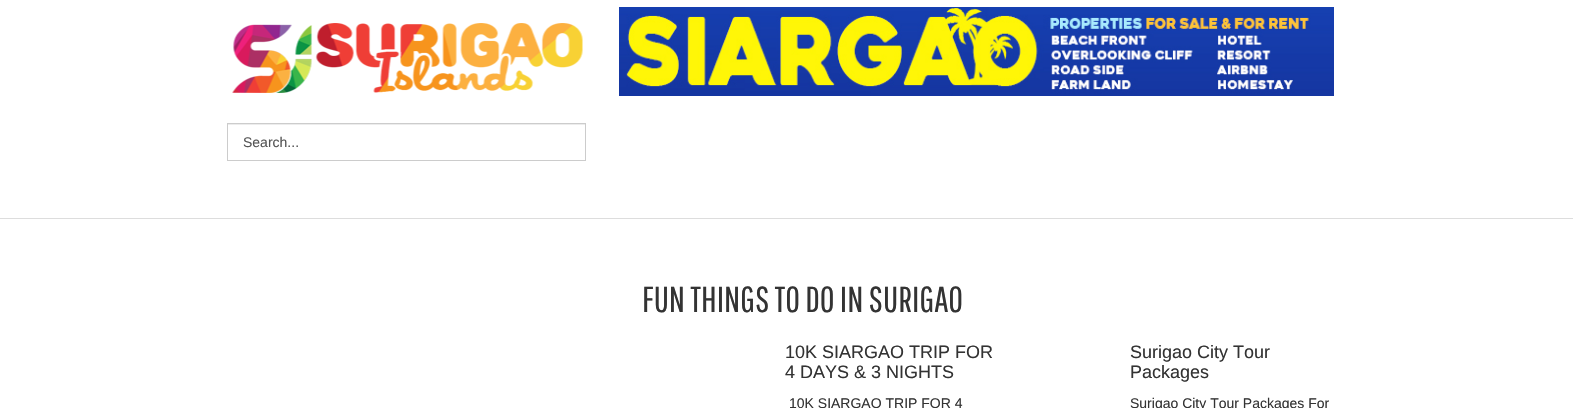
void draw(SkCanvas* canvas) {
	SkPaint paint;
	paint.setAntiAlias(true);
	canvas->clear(0xffffffff);
	paint.setColor(0xffdddddd);
	canvas->drawRect(SkRect::MakeXYWH(0, 218, 1573, 1), paint);
	canvas->drawImageRect(SkImages::DeferredFromEncodedData(SkData::MakeFromFileName("img1.png")), SkRect::MakeXYWH(619, 7, 715, 89), SkSamplingOptions());
	canvas->drawImageRect(SkImages::DeferredFromEncodedData(SkData::MakeFromFileName("img2.png")), SkRect::MakeXYWH(232, 23, 351, 70), SkSamplingOptions());
	paint.setColor(0xffececec);
	canvas->drawRect(SkRect::MakeXYWH(228, 124, 357, 1), paint);
	paint.setStroke(true);
	paint.setStrokeWidth(1);
	paint.setColor(0xffcccccc);
	canvas->drawRect(SkRect::MakeXYWH(227.5, 123.5, 358, 37), paint);
	SkFont f1(fontMgr->matchFamilyStyle("Liberation Sans", SkFontStyle::Normal()), 14);
	f1.setSubpixel(true);
	paint.setStroke(false);
	paint.setColor(0xff555555);
	canvas->drawString("Search...", 243, 147, f1, paint);
	SkFont f2(fontMgr->matchFamilyStyle("Pathway Gothic One", SkFontStyle::Normal()), 36);
	f2.setSubpixel(true);
	paint.setColor(0xff333333);
	canvas->drawString("FUN THINGS TO DO IN SURIGAO", 642, 312, f2, paint);
	SkFont f3(fontMgr->matchFamilyStyle("Liberation Sans", SkFontStyle::Normal()), 18);
	f3.setSubpixel(true);
	canvas->drawString("10K SIARGAO TRIP FOR", 785, 358, f3, paint);
	canvas->drawString("4 DAYS & 3 NIGHTS", 785, 378, f3, paint);
	canvas->drawString("10K SIARGAO TRIP FOR 4", 789, 408, f1, paint);
	canvas->drawString("Surigao City Tour", 1130, 358, f3, paint);
	canvas->drawString("Packages", 1130, 378, f3, paint);
	canvas->drawString("Surigao City Tour Packages For", 1130, 408, f1, paint);
}
